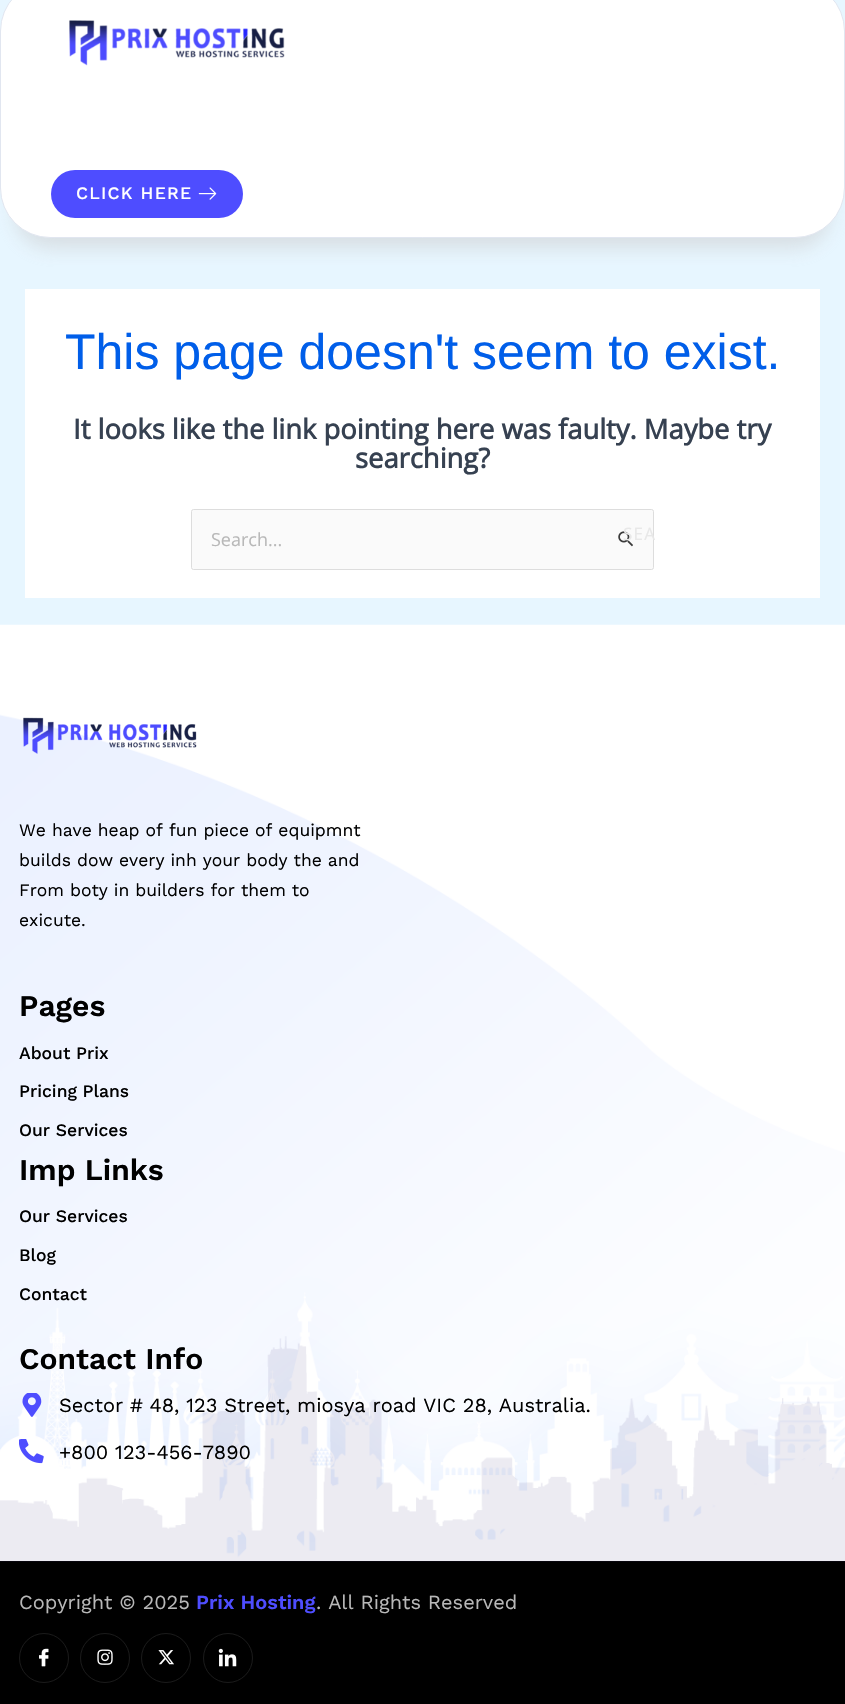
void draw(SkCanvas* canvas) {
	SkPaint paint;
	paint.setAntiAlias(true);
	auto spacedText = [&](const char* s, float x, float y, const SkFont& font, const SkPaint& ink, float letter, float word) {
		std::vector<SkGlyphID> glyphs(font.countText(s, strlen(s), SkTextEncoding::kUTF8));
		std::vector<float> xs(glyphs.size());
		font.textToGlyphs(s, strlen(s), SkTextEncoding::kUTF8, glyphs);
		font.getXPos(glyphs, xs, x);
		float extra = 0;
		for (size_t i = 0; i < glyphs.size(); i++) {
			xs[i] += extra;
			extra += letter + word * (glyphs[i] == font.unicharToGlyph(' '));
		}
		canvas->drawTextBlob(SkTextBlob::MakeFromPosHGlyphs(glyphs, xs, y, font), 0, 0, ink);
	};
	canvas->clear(0xffe7f6ff);
	paint.setColor(0x80c8c5c5);
	paint.setMaskFilter(SkMaskFilter::MakeBlur(kNormal_SkBlurStyle, 10));
	canvas->drawRoundRect(SkRect::MakeXYWH(15, 21, 815, 227), 35, 35, paint);
	paint.setMaskFilter(nullptr);
	paint.setColor(0xffffffff);
	canvas->drawRoundRect(SkRect::MakeXYWH(0.5, -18.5, 844, 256), 49.5, 49.5, paint);
	paint.setStroke(true);
	paint.setStrokeWidth(1);
	paint.setColor(0xffe1e6f0);
	canvas->drawRoundRect(SkRect::MakeXYWH(0.5, -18.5, 844, 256), 49.5, 49.5, paint);
	canvas->drawImageRect(SkImages::DeferredFromEncodedData(SkData::MakeFromFileName("img1.png")), SkRect::MakeXYWH(69, 20, 216, 46), SkSamplingOptions());
	paint.setStroke(false);
	paint.setColor(0xff4e4dff);
	canvas->drawRoundRect(SkRect::MakeXYWH(51, 170, 192, 48), 24, 24, paint);
	SkFont f1(fontMgr->matchFamilyStyle("Work Sans", SkFontStyle(500, SkFontStyle::kNormal_Width, SkFontStyle::kUpright_Slant)), 17.5);
	f1.setSubpixel(true);
	paint.setColor(0xffffffff);
	spacedText("CLICK HERE", 76, 199, f1, paint, 1.25, 0);
	canvas->drawImageRect(SkImages::DeferredFromEncodedData(SkData::MakeFromFileName("img2.png")), SkRect::MakeXYWH(198, 187, 19, 13), SkSamplingOptions());
	canvas->drawRect(SkRect::MakeXYWH(25, 289, 795, 309), paint);
	SkFont f2(fontMgr->matchFamilyStyle("Liberation Sans", SkFontStyle::Normal()), 50);
	f2.setSubpixel(true);
	paint.setColor(0xff005ee9);
	canvas->drawString("This page doesn't seem to exist.", 65, 369, f2, paint);
	SkFont f3(fontMgr->matchFamilyStyle("Open Sans", SkFontStyle::Bold()), 27.35);
	f3.setSubpixel(true);
	paint.setColor(0xff364151);
	canvas->drawString("It looks like the link pointing here was faulty. Maybe try", 73, 439, f3, paint);
	canvas->drawString("searching?", 355, 468, f3, paint);
	paint.setColor(0xfffafafa);
	canvas->drawRoundRect(SkRect::MakeXYWH(191.5, 509.5, 462, 60), 2, 2, paint);
	paint.setStroke(true);
	paint.setColor(0xffdddddd);
	canvas->drawRoundRect(SkRect::MakeXYWH(191.5, 509.5, 462, 60), 2, 2, paint);
	SkFont f4(fontMgr->matchFamilyStyle("Open Sans", SkFontStyle::Normal()), 18);
	f4.setSubpixel(true);
	paint.setStroke(false);
	paint.setColor(0xffb8b8b8);
	canvas->drawString("Search...", 211, 546, f4, paint);
	canvas->drawImageRect(SkImages::DeferredFromEncodedData(SkData::MakeFromFileName("img3.png")), SkRect::MakeXYWH(618, 531, 15, 16), SkSamplingOptions());
	SkFont f5(fontMgr->matchFamilyStyle("Open Sans", SkFontStyle::Normal()), 17);
	f5.setSubpixel(true);
	paint.setColor(0xffe8e8e8);
	spacedText("SEA", 623, 540, f5, paint, 1.25, 0);
	canvas->drawImageRect(SkImages::DeferredFromEncodedData(SkData::MakeFromFileName("img4.png")), SkRect::MakeXYWH(0, 624, 845, 937), SkSamplingOptions());
	canvas->drawImageRect(SkImages::DeferredFromEncodedData(SkData::MakeFromFileName("img5.png")), SkRect::MakeXYWH(23, 717, 174, 37), SkSamplingOptions());
	SkFont f6(fontMgr->matchFamilyStyle("Work Sans", SkFontStyle::Normal()), 17.5);
	f6.setSubpixel(true);
	paint.setColor(0xff000000);
	canvas->drawString("We have heap of fun piece of equipmnt", 19, 836, f6, paint);
	canvas->drawString("builds dow every inh your body the and", 19, 866, f6, paint);
	canvas->drawString("From boty in builders for them to", 19, 896, f6, paint);
	canvas->drawString("exicute.", 19, 926, f6, paint);
	SkFont f7(fontMgr->matchFamilyStyle("Work Sans", SkFontStyle(600, SkFontStyle::kNormal_Width, SkFontStyle::kUpright_Slant)), 30);
	f7.setSubpixel(true);
	canvas->drawString("Pages", 19, 1016, f7, paint);
	canvas->drawString("About Prix", 19, 1059, f1, paint);
	canvas->drawString("Pricing Plans", 19, 1097, f1, paint);
	canvas->drawString("Our Services", 19, 1136, f1, paint);
	canvas->drawString("Imp Links", 19, 1180, f7, paint);
	canvas->drawString("Our Services", 19, 1222, f1, paint);
	canvas->drawString("Blog", 19, 1261, f1, paint);
	canvas->drawString("Contact", 19, 1300, f1, paint);
	canvas->drawString("Contact Info", 19, 1369, f7, paint);
	canvas->drawImageRect(SkImages::DeferredFromEncodedData(SkData::MakeFromFileName("img6.png")), SkRect::MakeXYWH(22, 1393, 20, 24), SkSamplingOptions());
	SkFont f8(fontMgr->matchFamilyStyle("Work Sans", SkFontStyle::Normal()), 20);
	f8.setSubpixel(true);
	canvas->drawString("Sector # 48, 123 Street, miosya road VIC 28, Australia.", 59, 1412, f8, paint);
	canvas->drawImageRect(SkImages::DeferredFromEncodedData(SkData::MakeFromFileName("img7.png")), SkRect::MakeXYWH(19, 1439, 25, 25), SkSamplingOptions());
	canvas->drawString("+800 123-456-7890", 59, 1459, f8, paint);
	canvas->drawRect(SkRect::MakeXYWH(0, 1562, 845, 142), paint);
	paint.setColor(0xff08060d);
	canvas->drawRect(SkRect::MakeXYWH(0, 1561, 845, 1), paint);
	paint.setColor(0xffb8b8b8);
	canvas->drawString("Copyright © 2025", 19, 1609, f8, paint);
	SkFont f9(fontMgr->matchFamilyStyle("Work Sans", SkFontStyle(600, SkFontStyle::kNormal_Width, SkFontStyle::kUpright_Slant)), 20);
	f9.setSubpixel(true);
	paint.setColor(0xff4e4dff);
	canvas->drawString("Prix Hosting", 196, 1609, f9, paint);
	paint.setColor(0xffb8b8b8);
	canvas->drawString(". All Rights Reserved", 316, 1609, f8, paint);
	paint.setStroke(true);
	paint.setColor(0xff1a1a1a);
	canvas->drawCircle(44, 1658, 24.5, paint);
	canvas->drawImageRect(SkImages::DeferredFromEncodedData(SkData::MakeFromFileName("img8.png")), SkRect::MakeXYWH(39, 1648, 10, 19), SkSamplingOptions());
	canvas->drawCircle(105, 1658, 24.5, paint);
	canvas->drawImageRect(SkImages::DeferredFromEncodedData(SkData::MakeFromFileName("img9.png")), SkRect::MakeXYWH(97, 1649, 16, 16), SkSamplingOptions());
	canvas->drawCircle(166, 1658, 24.5, paint);
	canvas->drawImageRect(SkImages::DeferredFromEncodedData(SkData::MakeFromFileName("img10.png")), SkRect::MakeXYWH(158, 1650, 16, 15), SkSamplingOptions());
	canvas->drawCircle(228, 1658, 24.5, paint);
	canvas->drawImageRect(SkImages::DeferredFromEncodedData(SkData::MakeFromFileName("img11.png")), SkRect::MakeXYWH(218, 1648, 19, 19), SkSamplingOptions());
}
